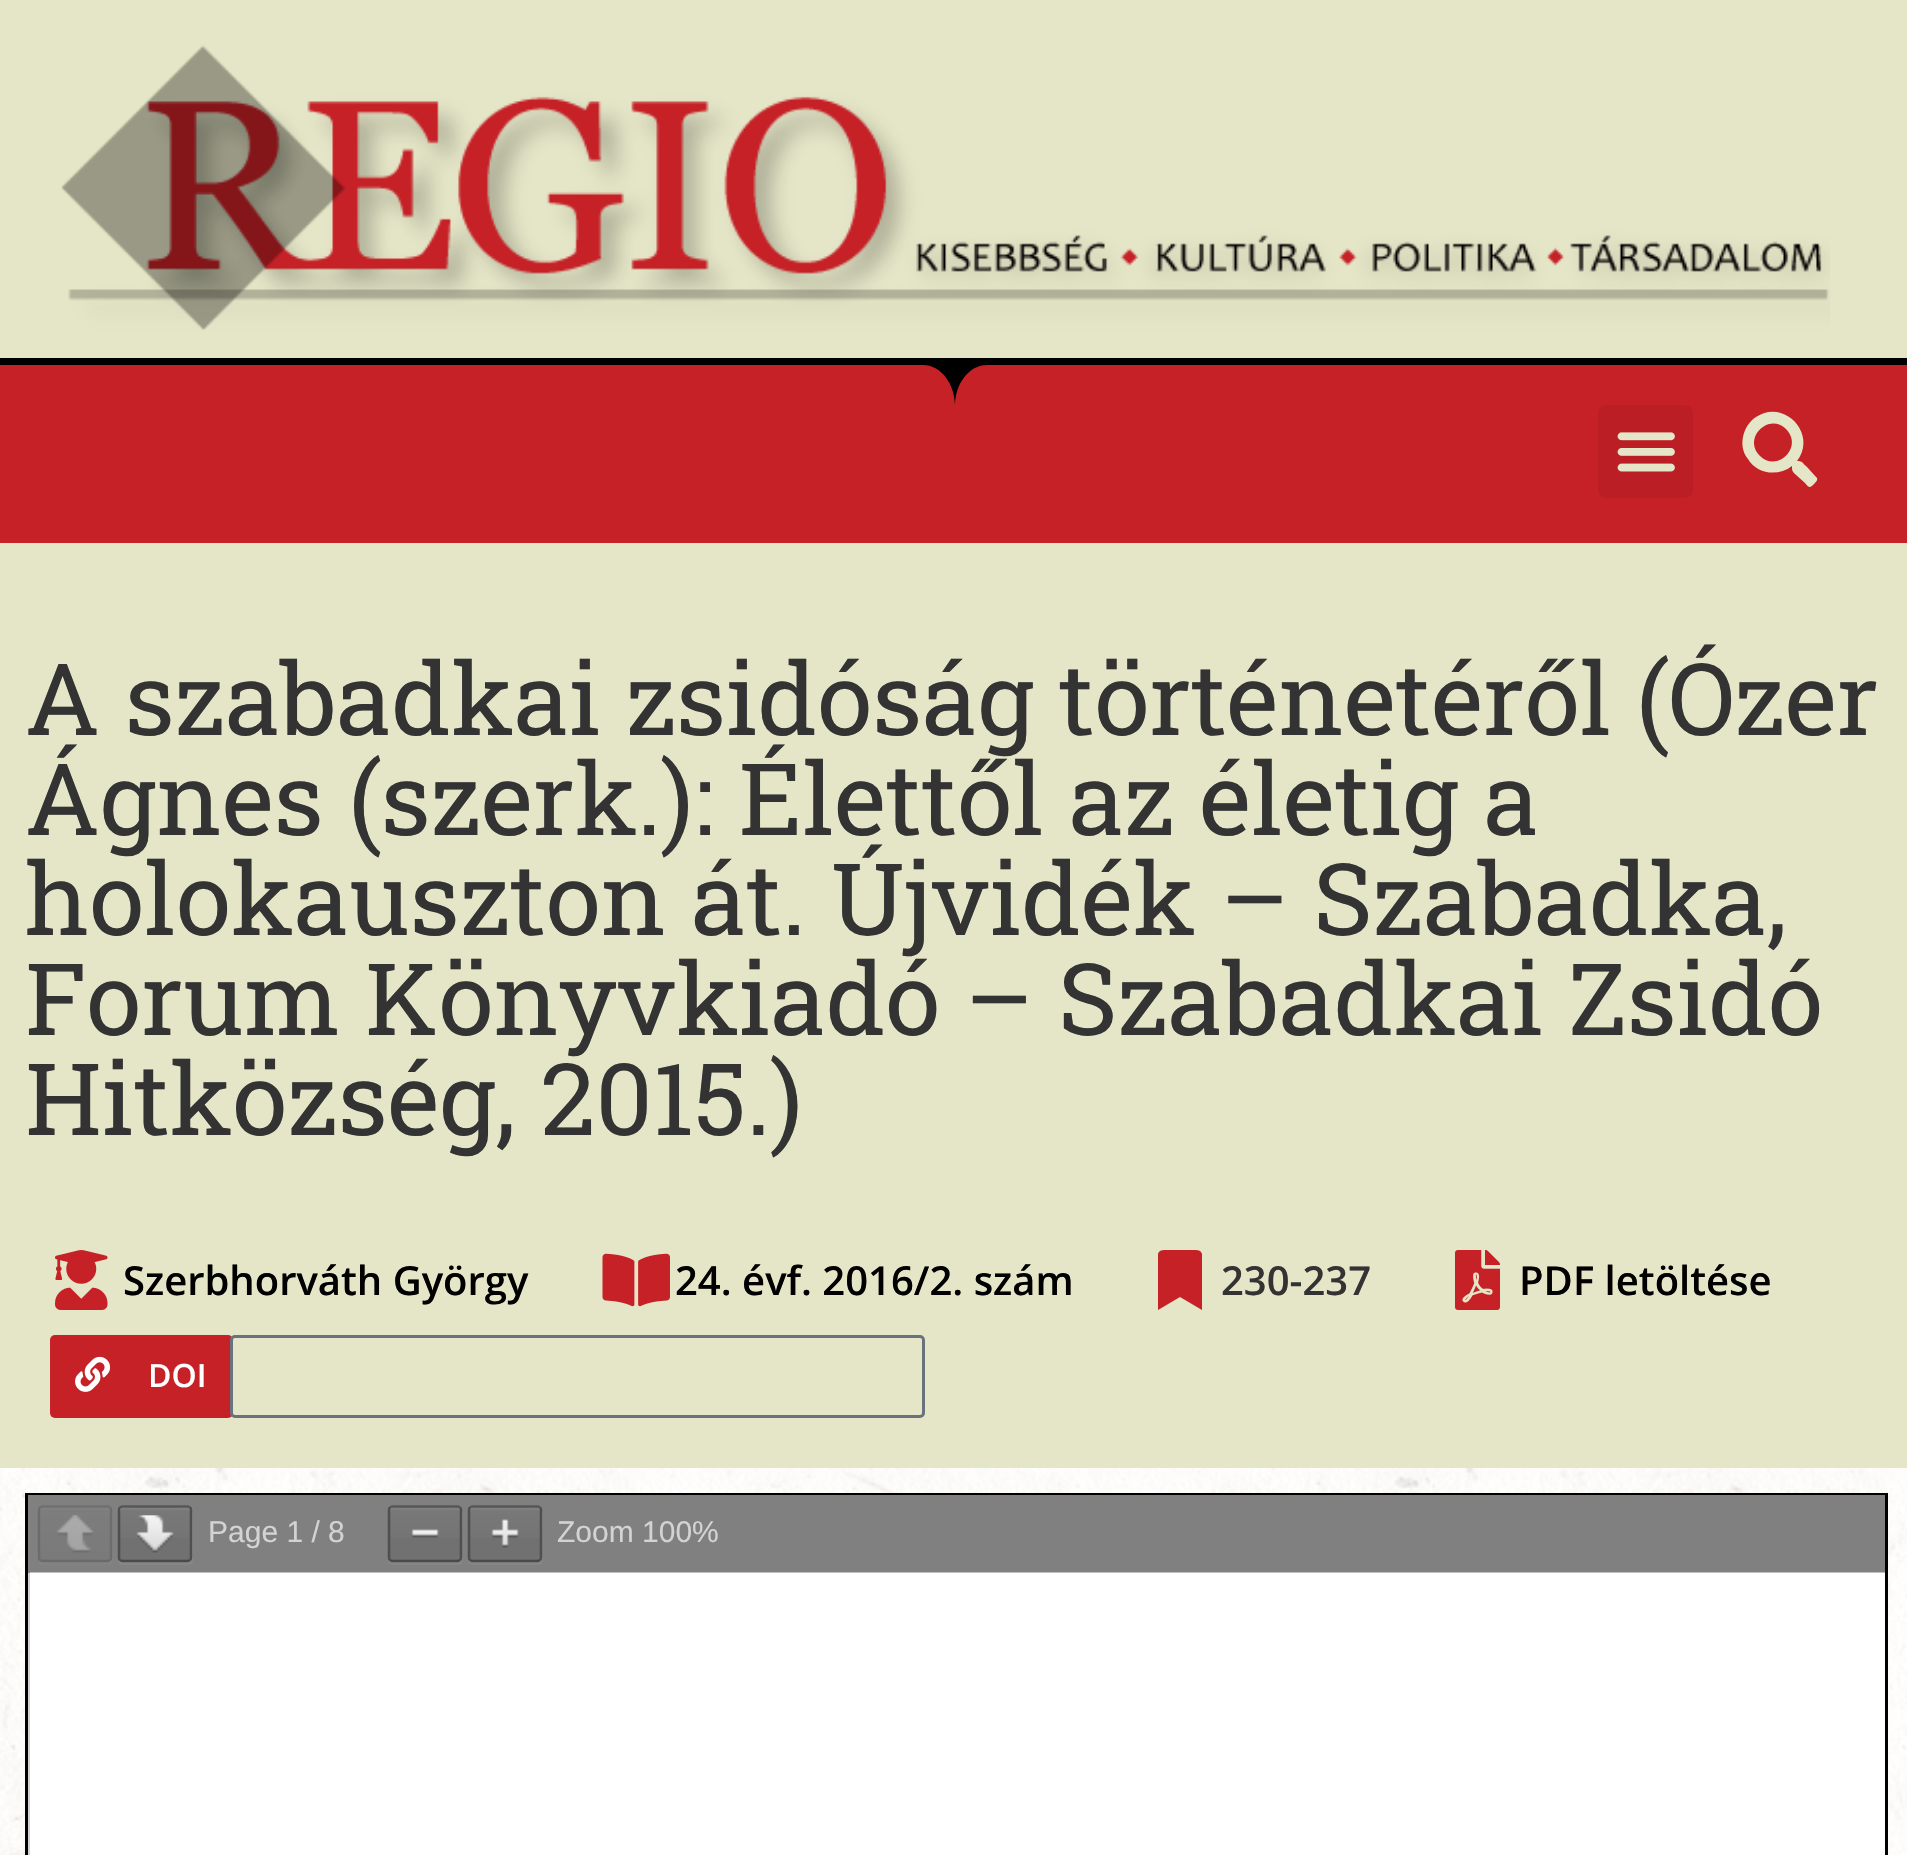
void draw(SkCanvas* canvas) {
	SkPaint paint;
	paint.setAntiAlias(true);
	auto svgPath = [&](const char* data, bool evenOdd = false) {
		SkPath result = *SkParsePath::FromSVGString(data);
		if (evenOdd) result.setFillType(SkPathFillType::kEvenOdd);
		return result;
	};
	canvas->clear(0xffffffff);
	canvas->drawImageRect(SkImages::DeferredFromEncodedData(SkData::MakeFromFileName("img1.png")), SkRect::MakeXYWH(0, 1468, 1907, 387), SkSamplingOptions());
	paint.setColor(0xffe5e5c7);
	canvas->drawRect(SkRect::MakeXYWH(0, 0, 1907, 358), paint);
	canvas->drawImageRect(SkImages::DeferredFromEncodedData(SkData::MakeFromFileName("img2.png")), SkRect::MakeXYWH(61, 45, 1769, 286), SkSamplingOptions());
	paint.setColor(0xffc52127);
	canvas->drawRect(SkRect::MakeXYWH(0, 365, 1907, 178), paint);
	paint.setColor(0xff000000);
	canvas->drawPath(svgPath("M0 358V365H923C941 365 955 384 955 406C955 384 969 365 987 365H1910V358Z"), paint);
	paint.setColor(0xffbb1f25);
	canvas->drawRoundRect(SkRect::MakeXYWH(1598, 405, 95, 93), 8, 8, paint);
	canvas->drawImageRect(SkImages::DeferredFromEncodedData(SkData::MakeFromFileName("img3.png")), SkRect::MakeXYWH(1617, 432, 58, 40), SkSamplingOptions());
	paint.setColor(0xffe5e5c7);
	canvas->drawPath(svgPath("M1816 477C1819 479 1816 482 1814 484C1810 488 1809 488 1805 483L1795 474C1792 471 1792 470 1792 466C1778 477 1757 474 1748 459C1742 452 1741 442 1744 433C1746 427 1750 421 1756 417C1784 398 1818 434 1797 461C1803 461 1802 463 1807 467ZM1760 456C1777 473 1804 447 1786 429C1769 412 1742 438 1760 456Z"), paint);
	canvas->drawRect(SkRect::MakeXYWH(0, 543, 1907, 925), paint);
	SkFont f1(fontMgr->matchFamilyStyle("Roboto Slab", SkFontStyle::Normal()), 100);
	f1.setSubpixel(true);
	paint.setColor(0xff333333);
	canvas->drawString("A szabadkai zsidóság történetéről (Ózer", 25, 735, f1, paint);
	canvas->drawString("Ágnes (szerk.): Élettől az életig a", 25, 835, f1, paint);
	canvas->drawString("holokauszton át. Újvidék – Szabadka,", 25, 935, f1, paint);
	canvas->drawString("Forum Könyvkiadó – Szabadkai Zsidó", 25, 1035, f1, paint);
	canvas->drawString("Hitközség, 2015.)", 25, 1135, f1, paint);
	canvas->drawImageRect(SkImages::DeferredFromEncodedData(SkData::MakeFromFileName("img4.png")), SkRect::MakeXYWH(55, 1250, 53, 60), SkSamplingOptions());
	SkFont f2(fontMgr->matchFamilyStyle("Open Sans", SkFontStyle(600, SkFontStyle::kNormal_Width, SkFontStyle::kUpright_Slant)), 40);
	f2.setSubpixel(true);
	paint.setColor(0xff000000);
	canvas->drawString("Szerbhorváth György", 123, 1295, f2, paint);
	canvas->drawImageRect(SkImages::DeferredFromEncodedData(SkData::MakeFromFileName("img5.png")), SkRect::MakeXYWH(602, 1253, 68, 54), SkSamplingOptions());
	canvas->drawString("24. évf. 2016/2. szám", 675, 1295, f2, paint);
	paint.setColor(0xffc52127);
	canvas->drawPath(svgPath("M1158 1310V1254C1159 1249 1165 1250 1169 1250H1191C1195 1250 1201 1249 1202 1254V1310L1180 1297Z"), paint);
	paint.setColor(0xff333333);
	canvas->drawString("230-237", 1221, 1295, f2, paint);
	canvas->drawImageRect(SkImages::DeferredFromEncodedData(SkData::MakeFromFileName("img6.png")), SkRect::MakeXYWH(1455, 1250, 45, 60), SkSamplingOptions());
	paint.setColor(0xff000000);
	canvas->drawString("PDF letöltése", 1519, 1295, f2, paint);
	paint.setColor(0xffc52127);
	canvas->drawRoundRect(SkRect::MakeXYWH(50, 1335, 183, 83), 5, 5, paint);
	canvas->drawImageRect(SkImages::DeferredFromEncodedData(SkData::MakeFromFileName("img7.png")), SkRect::MakeXYWH(75, 1356, 36, 36), SkSamplingOptions());
	SkFont f3(fontMgr->matchFamilyStyle("Open Sans", SkFontStyle(600, SkFontStyle::kNormal_Width, SkFontStyle::kUpright_Slant)), 32);
	f3.setSubpixel(true);
	paint.setColor(0xffffffff);
	canvas->drawString("DOI", 148, 1387, f3, paint);
	paint.setStroke(true);
	paint.setStrokeWidth(3);
	paint.setColor(0xff69727d);
	canvas->drawRoundRect(SkRect::MakeXYWH(231.5, 1336.5, 692, 80), 3.5, 3.5, paint);
	paint.setStroke(false);
	paint.setColor(0xffd3d3d3);
	canvas->drawRect(SkRect::MakeXYWH(28, 1573, 2, 282), paint);
	paint.setStroke(true);
	paint.setColor(0xff000000);
	canvas->drawRect(SkRect::MakeXYWH(26.5, 1494.5, 1860, 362), paint);
	paint.setStroke(false);
	paint.setColor(0xff808080);
	canvas->drawRect(SkRect::MakeXYWH(28, 1495, 1857, 78), paint);
	paint.setColor(0xff838383);
	canvas->drawPath(svgPath("M38 1560C38 1563 40 1565 43 1565H108C111 1565 113 1563 113 1560V1513L112 1511V1558C112 1560 110 1562 108 1562H42C41 1562 39 1561 38 1560Z"), paint);
	{
		const SkColor colors[] = {0xff7d7d7d, 0xff7a7a7a};
		const float stops[] = {0, 1};
		const SkPoint ends[] = {{75, 1508}, {75, 1560}};
		paint.setShader(SkGradientShader::MakeLinear(ends, colors, stops, 2, SkTileMode::kClamp));
		paint.setAlpha(255);
	}
	canvas->drawRoundRect(SkRect::MakeXYWH(40, 1508, 70, 52), 2.5, 2.5, paint);
	paint.setShader(nullptr);
	paint.setColor(0x0db3b3b3);
	canvas->drawPath(svgPath("M42 1510H108C109 1510 110 1511 110 1512C110 1505 102 1508 97 1508H53C48 1508 40 1505 40 1512C40 1511 41 1510 42 1510Z"), paint);
	paint.setStroke(true);
	paint.setStrokeWidth(2.5);
	paint.setColor(0xff707070);
	canvas->drawPath(svgPath("M40 1507.5L42 1506.5H108L110 1507.5"), paint);
	paint.setColor(0xff6d6d6d);
	canvas->drawPath(svgPath("M110 1507.5C111 1508 111 1509 111 1510V1557.5C111 1558.5 111 1559.5 110 1560"), paint);
	paint.setColor(0x6b4d4d4d);
	canvas->drawPath(svgPath("M110 1560L108 1561H42L40 1560"), paint);
	paint.setColor(0x614d4d4d);
	canvas->drawPath(svgPath("M40 1560C39 1559.5 39 1558.5 39 1557.5V1510C39 1509 39 1508 40 1507.5"), paint);
	canvas->drawImageRect(SkImages::DeferredFromEncodedData(SkData::MakeFromFileName("img8.png")), SkRect::MakeXYWH(57, 1515, 37, 38), SkSamplingOptions());
	paint.setStroke(false);
	paint.setColor(0xff868686);
	canvas->drawPath(svgPath("M118 1560C118 1563 120 1565 123 1565H188C191 1565 193 1563 193 1560V1513L192 1511V1558C192 1560 190 1562 188 1562H122C121 1562 119 1561 118 1560Z"), paint);
	paint.setColor(0xff717171);
	canvas->drawRoundRect(SkRect::MakeXYWH(120, 1508, 70, 52), 2.5, 2.5, paint);
	{
		const SkColor colors[] = {0x0dffffff, 0x00ffffff};
		const float stops[] = {0, 1};
		const SkPoint ends[] = {{155, 1508}, {155, 1560}};
		paint.setShader(SkGradientShader::MakeLinear(ends, colors, stops, 2, SkTileMode::kClamp));
		paint.setAlpha(255);
	}
	canvas->drawRect(SkRect::MakeXYWH(120, 1508, 70, 30), paint);
	paint.setShader(nullptr);
	paint.setColor(0x0dffffff);
	canvas->drawPath(svgPath("M122 1510H188C189 1510 190 1511 190 1512C190 1505 182 1508 177 1508H133C128 1508 120 1505 120 1512C120 1511 121 1510 122 1510Z"), paint);
	paint.setStroke(true);
	paint.setColor(0x52000000);
	canvas->drawPath(svgPath("M120 1507.5L122 1506.5H188L190 1507.5"), paint);
	paint.setColor(0x61000000);
	canvas->drawPath(svgPath("M190 1507.5C191 1508 191 1509 191 1510V1557.5C191 1558.5 191 1559.5 190 1560"), paint);
	paint.setColor(0x6b000000);
	canvas->drawPath(svgPath("M190 1560L188 1561H122L120 1560"), paint);
	paint.setColor(0x61000000);
	canvas->drawPath(svgPath("M120 1560C119 1559.5 119 1558.5 119 1557.5V1510C119 1509 119 1508 120 1507.5"), paint);
	canvas->drawImageRect(SkImages::DeferredFromEncodedData(SkData::MakeFromFileName("img9.png")), SkRect::MakeXYWH(136, 1515, 38, 38), SkSamplingOptions());
	SkFont f4(fontMgr->matchFamilyStyle("Liberation Sans", SkFontStyle::Normal()), 30);
	f4.setSubpixel(true);
	paint.setStroke(false);
	paint.setColor(0xffd3d3d3);
	canvas->drawString("Page 1 / 8", 208, 1542, f4, paint);
	paint.setColor(0xff868686);
	canvas->drawPath(svgPath("M388 1560C388 1563 390 1565 393 1565H458C461 1565 463 1563 463 1560V1513L462 1511V1558C462 1560 460 1562 458 1562H392C391 1562 389 1561 388 1560Z"), paint);
	paint.setColor(0xff717171);
	canvas->drawRoundRect(SkRect::MakeXYWH(390, 1508, 70, 52), 2.5, 2.5, paint);
	{
		const SkColor colors[] = {0x0dffffff, 0x00ffffff};
		const float stops[] = {0, 1};
		const SkPoint ends[] = {{425, 1508}, {425, 1560}};
		paint.setShader(SkGradientShader::MakeLinear(ends, colors, stops, 2, SkTileMode::kClamp));
		paint.setAlpha(255);
	}
	canvas->drawRect(SkRect::MakeXYWH(390, 1508, 70, 30), paint);
	paint.setShader(nullptr);
	paint.setColor(0x0dffffff);
	canvas->drawPath(svgPath("M392 1510H458C459 1510 460 1511 460 1512C460 1505 452 1508 447 1508H403C398 1508 390 1505 390 1512C390 1511 391 1510 392 1510Z"), paint);
	paint.setStroke(true);
	paint.setColor(0x52000000);
	canvas->drawPath(svgPath("M390 1507.5L392 1506.5H458L460 1507.5"), paint);
	paint.setColor(0x61000000);
	canvas->drawPath(svgPath("M460 1507.5C461 1508 461 1509 461 1510V1557.5C461 1558.5 461 1559.5 460 1560"), paint);
	paint.setColor(0x6b000000);
	canvas->drawPath(svgPath("M460 1560L458 1561H392L390 1560"), paint);
	paint.setColor(0x61000000);
	canvas->drawPath(svgPath("M390 1560C389 1559.5 389 1558.5 389 1557.5V1510C389 1509 389 1508 390 1507.5"), paint);
	canvas->drawImageRect(SkImages::DeferredFromEncodedData(SkData::MakeFromFileName("img10.png")), SkRect::MakeXYWH(411, 1529, 28, 9), SkSamplingOptions());
	paint.setStroke(false);
	paint.setColor(0xff868686);
	canvas->drawPath(svgPath("M468 1560C468 1563 470 1565 473 1565H538C541 1565 543 1563 543 1560V1513L542 1511V1558C542 1560 540 1562 538 1562H472C471 1562 469 1561 468 1560Z"), paint);
	paint.setColor(0xff717171);
	canvas->drawRoundRect(SkRect::MakeXYWH(470, 1508, 70, 52), 2.5, 2.5, paint);
	{
		const SkColor colors[] = {0x0dffffff, 0x00ffffff};
		const float stops[] = {0, 1};
		const SkPoint ends[] = {{505, 1508}, {505, 1560}};
		paint.setShader(SkGradientShader::MakeLinear(ends, colors, stops, 2, SkTileMode::kClamp));
		paint.setAlpha(255);
	}
	canvas->drawRect(SkRect::MakeXYWH(470, 1508, 70, 30), paint);
	paint.setShader(nullptr);
	paint.setColor(0x0dffffff);
	canvas->drawPath(svgPath("M472 1510H538C539 1510 540 1511 540 1512C540 1505 532 1508 527 1508H483C478 1508 470 1505 470 1512C470 1511 471 1510 472 1510Z"), paint);
	paint.setStroke(true);
	paint.setColor(0x52000000);
	canvas->drawPath(svgPath("M470 1507.5L472 1506.5H538L540 1507.5"), paint);
	paint.setColor(0x61000000);
	canvas->drawPath(svgPath("M540 1507.5C541 1508 541 1509 541 1510V1557.5C541 1558.5 541 1559.5 540 1560"), paint);
	paint.setColor(0x6b000000);
	canvas->drawPath(svgPath("M540 1560L538 1561H472L470 1560"), paint);
	paint.setColor(0x61000000);
	canvas->drawPath(svgPath("M470 1560C469 1559.5 469 1558.5 469 1557.5V1510C469 1509 469 1508 470 1507.5"), paint);
	canvas->drawImageRect(SkImages::DeferredFromEncodedData(SkData::MakeFromFileName("img11.png")), SkRect::MakeXYWH(491, 1519, 28, 29), SkSamplingOptions());
	paint.setStroke(false);
	paint.setColor(0xffd3d3d3);
	canvas->drawString("Zoom 100%", 557, 1542, f4, paint);
	paint.setColor(0xffffffff);
	canvas->drawRect(SkRect::MakeXYWH(30, 1573, 1855, 282), paint);
	paint.setColor(0xffc0c0c0);
	canvas->drawRect(SkRect::MakeXYWH(30, 1572, 1855, 1), paint);
}
